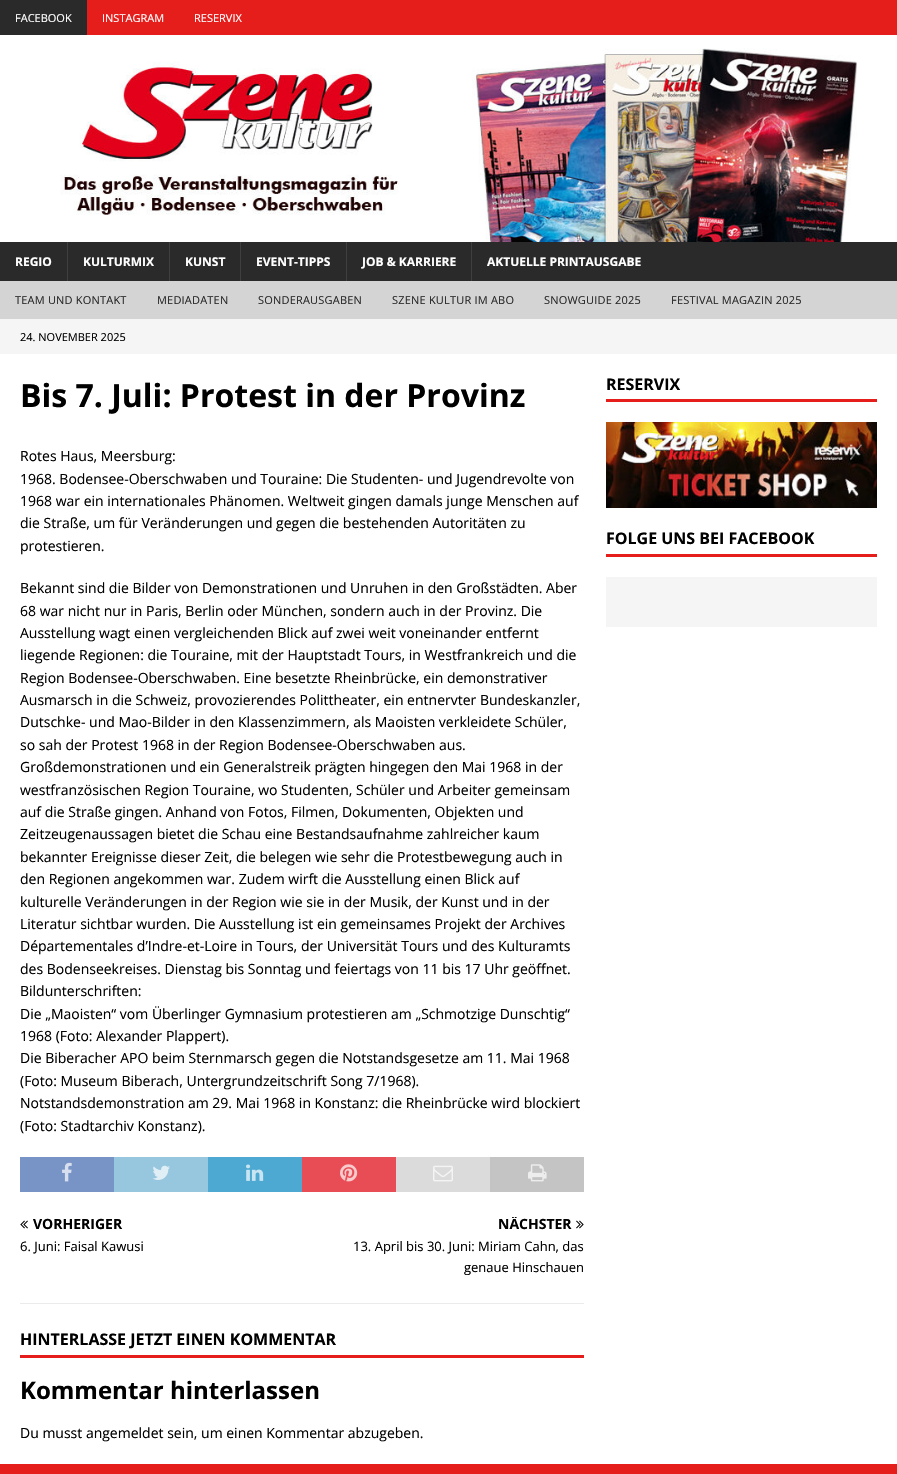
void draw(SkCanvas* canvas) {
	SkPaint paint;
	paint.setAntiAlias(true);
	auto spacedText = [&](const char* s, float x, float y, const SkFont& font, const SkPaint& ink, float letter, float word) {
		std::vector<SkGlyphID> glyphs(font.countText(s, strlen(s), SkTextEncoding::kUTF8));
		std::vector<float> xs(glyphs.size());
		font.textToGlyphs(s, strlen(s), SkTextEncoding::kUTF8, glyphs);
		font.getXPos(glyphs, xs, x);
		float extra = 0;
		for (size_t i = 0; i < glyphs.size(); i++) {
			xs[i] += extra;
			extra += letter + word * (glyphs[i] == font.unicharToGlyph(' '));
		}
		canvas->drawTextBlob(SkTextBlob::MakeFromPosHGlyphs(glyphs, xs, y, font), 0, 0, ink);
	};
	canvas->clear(0xffe51e1b);
	paint.setColor(0xff2a2a2a);
	canvas->drawRect(SkRect::MakeXYWH(0, 0, 87, 35), paint);
	SkFont f1(fontMgr->matchFamilyStyle("Open Sans", SkFontStyle::Normal()), 11);
	f1.setSubpixel(true);
	paint.setColor(0xffffffff);
	canvas->drawString("FACEBOOK", 15, 22, f1, paint);
	canvas->drawString("INSTAGRAM", 102, 22, f1, paint);
	canvas->drawString("RESERVIX", 194, 22, f1, paint);
	canvas->drawRect(SkRect::MakeXYWH(0, 35, 897, 207), paint);
	canvas->drawImageRect(SkImages::DeferredFromEncodedData(SkData::MakeFromFileName("img1.png")), SkRect::MakeXYWH(60, 48, 797, 194), SkSamplingOptions());
	paint.setColor(0xff2a2a2a);
	canvas->drawRect(SkRect::MakeXYWH(0, 242, 897, 39), paint);
	SkFont f2(fontMgr->matchFamilyStyle("Open Sans", SkFontStyle::Bold()), 12);
	f2.setSubpixel(true);
	paint.setColor(0xffffffff);
	canvas->drawString("REGIO", 15, 266, f2, paint);
	paint.setColor(0xff3f3f3f);
	canvas->drawRect(SkRect::MakeXYWH(67, 242, 1, 39), paint);
	paint.setColor(0xffffffff);
	canvas->drawString("KULTURMIX", 83, 266, f2, paint);
	paint.setColor(0xff3f3f3f);
	canvas->drawRect(SkRect::MakeXYWH(169, 242, 1, 39), paint);
	paint.setColor(0xffffffff);
	canvas->drawString("KUNST", 185, 266, f2, paint);
	paint.setColor(0xff3f3f3f);
	canvas->drawRect(SkRect::MakeXYWH(240, 242, 1, 39), paint);
	paint.setColor(0xffffffff);
	canvas->drawString("EVENT-TIPPS", 256, 266, f2, paint);
	paint.setColor(0xff3f3f3f);
	canvas->drawRect(SkRect::MakeXYWH(346, 242, 1, 39), paint);
	paint.setColor(0xffffffff);
	canvas->drawString("JOB & KARRIERE", 362, 266, f2, paint);
	paint.setColor(0xff3f3f3f);
	canvas->drawRect(SkRect::MakeXYWH(471, 242, 1, 39), paint);
	paint.setColor(0xffffffff);
	canvas->drawString("AKTUELLE PRINTAUSGABE", 487, 266, f2, paint);
	paint.setColor(0xffd4d4d4);
	canvas->drawRect(SkRect::MakeXYWH(0, 281, 897, 38), paint);
	paint.setColor(0xff2a2a2a);
	spacedText("TEAM UND KONTAKT", 15, 304, f1, paint, 0.2, 0);
	spacedText("MEDIADATEN", 157, 304, f1, paint, 0.2, 0);
	spacedText("SONDERAUSGABEN", 258, 304, f1, paint, 0.2, 0);
	spacedText("SZENE KULTUR IM ABO", 392, 304, f1, paint, 0.2, 0);
	spacedText("SNOWGUIDE 2025", 544, 304, f1, paint, 0.2, 0);
	spacedText("FESTIVAL MAGAZIN 2025", 671, 304, f1, paint, 0.2, 0);
	paint.setColor(0xfff5f5f5);
	canvas->drawRect(SkRect::MakeXYWH(0, 319, 897, 35), paint);
	paint.setColor(0xff000000);
	canvas->drawString("24. NOVEMBER 2025", 20, 341, f1, paint);
	paint.setColor(0xffffffff);
	canvas->drawRect(SkRect::MakeXYWH(0, 354, 897, 1110), paint);
	SkFont f3(fontMgr->matchFamilyStyle("Open Sans", SkFontStyle::Bold()), 32);
	f3.setSubpixel(true);
	paint.setColor(0xff000000);
	canvas->drawString("Bis 7. Juli: Protest in der Provinz", 20, 407, f3, paint);
	SkFont f4(fontMgr->matchFamilyStyle("Open Sans", SkFontStyle::Normal()), 14);
	f4.setSubpixel(true);
	canvas->drawString("Rotes Haus, Meersburg:", 20, 461, f4, paint);
	canvas->drawString("1968. Bodensee-Oberschwaben und Touraine: Die Studenten- und Jugendrevolte von", 20, 484, f4, paint);
	canvas->drawString("1968 war ein internationales Phänomen. Weltweit gingen damals junge Menschen auf", 20, 506, f4, paint);
	canvas->drawString("die Straße, um für Veränderungen und gegen die bestehenden Autoritäten zu", 20, 528, f4, paint);
	canvas->drawString("protestieren.", 20, 551, f4, paint);
	canvas->drawString("Bekannt sind die Bilder von Demonstrationen und Unruhen in den Großstädten. Aber", 20, 593, f4, paint);
	canvas->drawString("68 war nicht nur in Paris, Berlin oder München, sondern auch in der Provinz. Die", 20, 616, f4, paint);
	canvas->drawString("Ausstellung wagt einen vergleichenden Blick auf zwei weit voneinander entfernt", 20, 638, f4, paint);
	canvas->drawString("liegende Regionen: die Touraine, mit der Hauptstadt Tours, in Westfrankreich und die", 20, 660, f4, paint);
	canvas->drawString("Region Bodensee-Oberschwaben. Eine besetzte Rheinbrücke, ein demonstrativer", 20, 683, f4, paint);
	canvas->drawString("Ausmarsch in die Schweiz, provozierendes Polittheater, ein entnervter Bundeskanzler,", 20, 705, f4, paint);
	canvas->drawString("Dutschke- und Mao-Bilder in den Klassenzimmern, als Maoisten verkleidete Schüler,", 20, 727, f4, paint);
	canvas->drawString("so sah der Protest 1968 in der Region Bodensee-Oberschwaben aus.", 20, 750, f4, paint);
	canvas->drawString("Großdemonstrationen und ein Generalstreik prägten hingegen den Mai 1968 in der", 20, 772, f4, paint);
	canvas->drawString("westfranzösischen Region Touraine, wo Studenten, Schüler und Arbeiter gemeinsam", 20, 795, f4, paint);
	canvas->drawString("auf die Straße gingen. Anhand von Fotos, Filmen, Dokumenten, Objekten und", 20, 817, f4, paint);
	canvas->drawString("Zeitzeugenaussagen bietet die Schau eine Bestandsaufnahme zahlreicher kaum", 20, 839, f4, paint);
	canvas->drawString("bekannter Ereignisse dieser Zeit, die belegen wie sehr die Protestbewegung auch in", 20, 862, f4, paint);
	canvas->drawString("den Regionen angekommen war. Zudem wirft die Ausstellung einen Blick auf", 20, 884, f4, paint);
	canvas->drawString("kulturelle Veränderungen in der Region wie sie in der Musik, der Kunst und in der", 20, 907, f4, paint);
	canvas->drawString("Literatur sichtbar wurden. Die Ausstellung ist ein gemeinsames Projekt der Archives", 20, 929, f4, paint);
	canvas->drawString("Départementales d’Indre-et-Loire in Tours, der Universität Tours und des Kulturamts", 20, 951, f4, paint);
	canvas->drawString("des Bodenseekreises. Dienstag bis Sonntag und feiertags von 11 bis 17 Uhr geöffnet.", 20, 974, f4, paint);
	canvas->drawString("Bildunterschriften:", 20, 996, f4, paint);
	canvas->drawString("Die „Maoisten“ vom Überlinger Gymnasium protestieren am „Schmotzige Dunschtig“", 20, 1019, f4, paint);
	canvas->drawString("1968 (Foto: Alexander Plappert).", 20, 1041, f4, paint);
	canvas->drawString("Die Biberacher APO beim Sternmarsch gegen die Notstandsgesetze am 11. Mai 1968", 20, 1063, f4, paint);
	canvas->drawString("(Foto: Museum Biberach, Untergrundzeitschrift Song 7/1968).", 20, 1086, f4, paint);
	canvas->drawString("Notstandsdemonstration am 29. Mai 1968 in Konstanz: die Rheinbrücke wird blockiert", 20, 1108, f4, paint);
	canvas->drawString("(Foto: Stadtarchiv Konstanz).", 20, 1131, f4, paint);
	paint.setColor(0xff7893c6);
	canvas->drawRect(SkRect::MakeXYWH(20, 1157, 94, 35), paint);
	canvas->drawImageRect(SkImages::DeferredFromEncodedData(SkData::MakeFromFileName("img2.png")), SkRect::MakeXYWH(62, 1162, 10, 20), SkSamplingOptions());
	paint.setColor(0xff97c6df);
	canvas->drawRect(SkRect::MakeXYWH(114, 1157, 94, 35), paint);
	canvas->drawImageRect(SkImages::DeferredFromEncodedData(SkData::MakeFromFileName("img3.png")), SkRect::MakeXYWH(152, 1165, 18, 15), SkSamplingOptions());
	paint.setColor(0xff4da9d2);
	canvas->drawRect(SkRect::MakeXYWH(208, 1157, 94, 35), paint);
	canvas->drawImageRect(SkImages::DeferredFromEncodedData(SkData::MakeFromFileName("img4.png")), SkRect::MakeXYWH(246, 1164, 18, 17), SkSamplingOptions());
	paint.setColor(0xffe84d56);
	canvas->drawRect(SkRect::MakeXYWH(302, 1157, 94, 35), paint);
	canvas->drawImageRect(SkImages::DeferredFromEncodedData(SkData::MakeFromFileName("img5.png")), SkRect::MakeXYWH(340, 1164, 18, 18), SkSamplingOptions());
	paint.setColor(0xffdbdbdb);
	canvas->drawRect(SkRect::MakeXYWH(396, 1157, 94, 35), paint);
	canvas->drawImageRect(SkImages::DeferredFromEncodedData(SkData::MakeFromFileName("img6.png")), SkRect::MakeXYWH(433, 1165, 20, 17), SkSamplingOptions());
	paint.setColor(0xffc4c4c4);
	canvas->drawRect(SkRect::MakeXYWH(490, 1157, 94, 35), paint);
	canvas->drawImageRect(SkImages::DeferredFromEncodedData(SkData::MakeFromFileName("img7.png")), SkRect::MakeXYWH(528, 1164, 19, 18), SkSamplingOptions());
	paint.setColor(0xffebebeb);
	canvas->drawRect(SkRect::MakeXYWH(20, 1303, 564, 1), paint);
	canvas->drawImageRect(SkImages::DeferredFromEncodedData(SkData::MakeFromFileName("img8.png")), SkRect::MakeXYWH(20, 1220, 8, 9), SkSamplingOptions());
	SkFont f5(fontMgr->matchFamilyStyle("Open Sans", SkFontStyle::Bold()), 14);
	f5.setSubpixel(true);
	paint.setColor(0xff000000);
	canvas->drawString("VORHERIGER", 33, 1229, f5, paint);
	SkFont f6(fontMgr->matchFamilyStyle("Open Sans", SkFontStyle::Normal()), 13);
	f6.setSubpixel(true);
	canvas->drawString("6. Juni: Faisal Kawusi", 20, 1251, f6, paint);
	canvas->save();
	canvas->clipRect(SkRect::MakeXYWH(309, 1217, 275, 14));
	canvas->drawString("NÄCHSTER", 498, 1229, f5, paint);
	canvas->restore();
	canvas->drawImageRect(SkImages::DeferredFromEncodedData(SkData::MakeFromFileName("img9.png")), SkRect::MakeXYWH(576, 1220, 8, 9), SkSamplingOptions());
	canvas->drawString("13. April bis 30. Juni: Miriam Cahn, das", 353, 1251, f6, paint);
	canvas->drawString("genaue Hinschauen", 464, 1272, f6, paint);
	paint.setColor(0xffe51e1b);
	canvas->drawRect(SkRect::MakeXYWH(20, 1355, 564, 3), paint);
	SkFont f7(fontMgr->matchFamilyStyle("Open Sans", SkFontStyle::Bold()), 16);
	f7.setSubpixel(true);
	paint.setColor(0xff000000);
	canvas->drawString("HINTERLASSE JETZT EINEN KOMMENTAR", 20, 1345, f7, paint);
	SkFont f8(fontMgr->matchFamilyStyle("Open Sans", SkFontStyle::Bold()), 24);
	f8.setSubpixel(true);
	canvas->drawString("Kommentar hinterlassen", 20, 1399, f8, paint);
	canvas->drawString("Du musst angemeldet sein, um einen Kommentar abzugeben.", 20, 1438, f4, paint);
	paint.setColor(0xffe51e1b);
	canvas->drawRect(SkRect::MakeXYWH(606, 399, 271, 3), paint);
	paint.setColor(0xff000000);
	canvas->drawString("RESERVIX", 606, 390, f7, paint);
	canvas->drawImageRect(SkImages::DeferredFromEncodedData(SkData::MakeFromFileName("img10.png")), SkRect::MakeXYWH(606, 422, 271, 86), SkSamplingOptions());
	paint.setColor(0xffe51e1b);
	canvas->drawRect(SkRect::MakeXYWH(606, 554, 271, 3), paint);
	paint.setColor(0xff000000);
	canvas->drawString("FOLGE UNS BEI FACEBOOK", 606, 544, f7, paint);
	paint.setColor(0xfff5f5f5);
	canvas->drawRect(SkRect::MakeXYWH(606, 577, 271, 50), paint);
}
